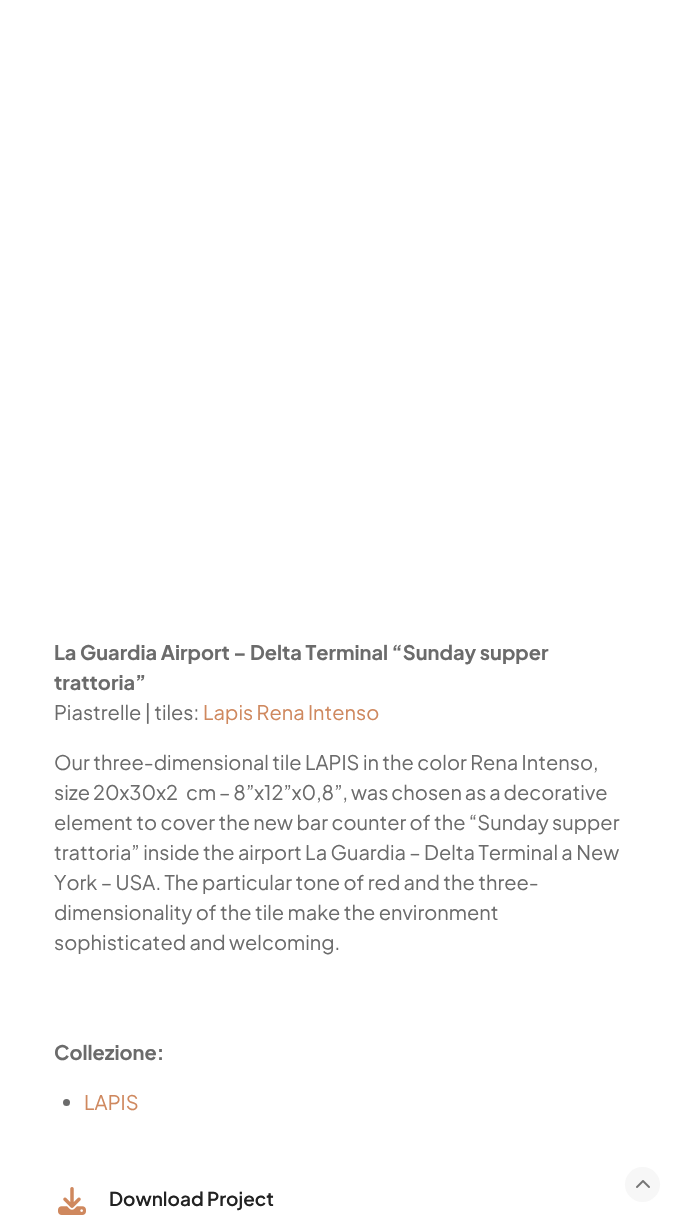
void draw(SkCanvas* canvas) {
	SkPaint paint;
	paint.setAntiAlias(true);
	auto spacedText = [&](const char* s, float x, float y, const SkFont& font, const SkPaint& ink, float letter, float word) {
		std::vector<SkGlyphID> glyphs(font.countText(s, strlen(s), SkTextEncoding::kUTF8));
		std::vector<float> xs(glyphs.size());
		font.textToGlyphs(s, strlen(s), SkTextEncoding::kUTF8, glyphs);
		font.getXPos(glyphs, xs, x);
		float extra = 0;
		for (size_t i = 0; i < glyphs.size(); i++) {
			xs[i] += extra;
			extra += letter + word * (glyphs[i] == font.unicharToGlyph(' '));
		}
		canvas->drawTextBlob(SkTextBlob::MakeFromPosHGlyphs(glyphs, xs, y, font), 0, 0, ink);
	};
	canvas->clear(0xffffffff);
	SkFont f1(fontMgr->matchFamilyStyle("Plus Jakarta Sans", SkFontStyle::Bold()), 20);
	f1.setSubpixel(true);
	paint.setColor(0xff6b6b6b);
	canvas->drawString("La Guardia Airport – Delta Terminal “Sunday supper", 54, 660, f1, paint);
	canvas->drawString("trattoria”", 54, 690, f1, paint);
	SkFont f2(fontMgr->matchFamilyStyle("Plus Jakarta Sans", SkFontStyle::Normal()), 20);
	f2.setSubpixel(true);
	canvas->drawString("Piastrelle | tiles:", 54, 720, f2, paint);
	paint.setColor(0xffcf885e);
	canvas->drawString("Lapis Rena Intenso", 203, 720, f2, paint);
	paint.setColor(0xff6b6b6b);
	canvas->drawString("Our three-dimensional tile LAPIS in the color Rena Intenso,", 54, 770, f2, paint);
	spacedText("size 20x30x2", 54, 800, f2, paint, 0, -0.5);
	spacedText("cm – 8”x12”x0,8”, was chosen as a decorative", 186, 800, f2, paint, 0, -0.5);
	canvas->drawString("element to cover the new bar counter of the “Sunday supper", 54, 830, f2, paint);
	canvas->drawString("trattoria” inside the airport La Guardia – Delta Terminal a New", 54, 860, f2, paint);
	canvas->drawString("York – USA. The particular tone of red and the three-", 54, 890, f2, paint);
	canvas->drawString("dimensionality of the tile make the environment", 54, 920, f2, paint);
	canvas->drawString("sophisticated and welcoming.", 54, 950, f2, paint);
	canvas->drawString("Collezione:", 54, 1060, f1, paint);
	canvas->drawCircle(66.5, 1102.5, 3.5, paint);
	paint.setColor(0xffcf885e);
	canvas->drawString("LAPIS", 84, 1110, f2, paint);
	canvas->drawImageRect(SkImages::DeferredFromEncodedData(SkData::MakeFromFileName("img1.png")), SkRect::MakeXYWH(58, 1187, 28, 28), SkSamplingOptions());
	SkFont f3(fontMgr->matchFamilyStyle("Plus Jakarta Sans", SkFontStyle(600, SkFontStyle::kNormal_Width, SkFontStyle::kUpright_Slant)), 19);
	f3.setSubpixel(true);
	paint.setColor(0xff222222);
	canvas->drawString("Download Project", 109, 1206, f3, paint);
	paint.setColor(0xfff7f7f7);
	canvas->drawCircle(642.5, 1184.5, 17.5, paint);
	canvas->drawImageRect(SkImages::DeferredFromEncodedData(SkData::MakeFromFileName("img2.png")), SkRect::MakeXYWH(636, 1180, 14, 8), SkSamplingOptions());
}
